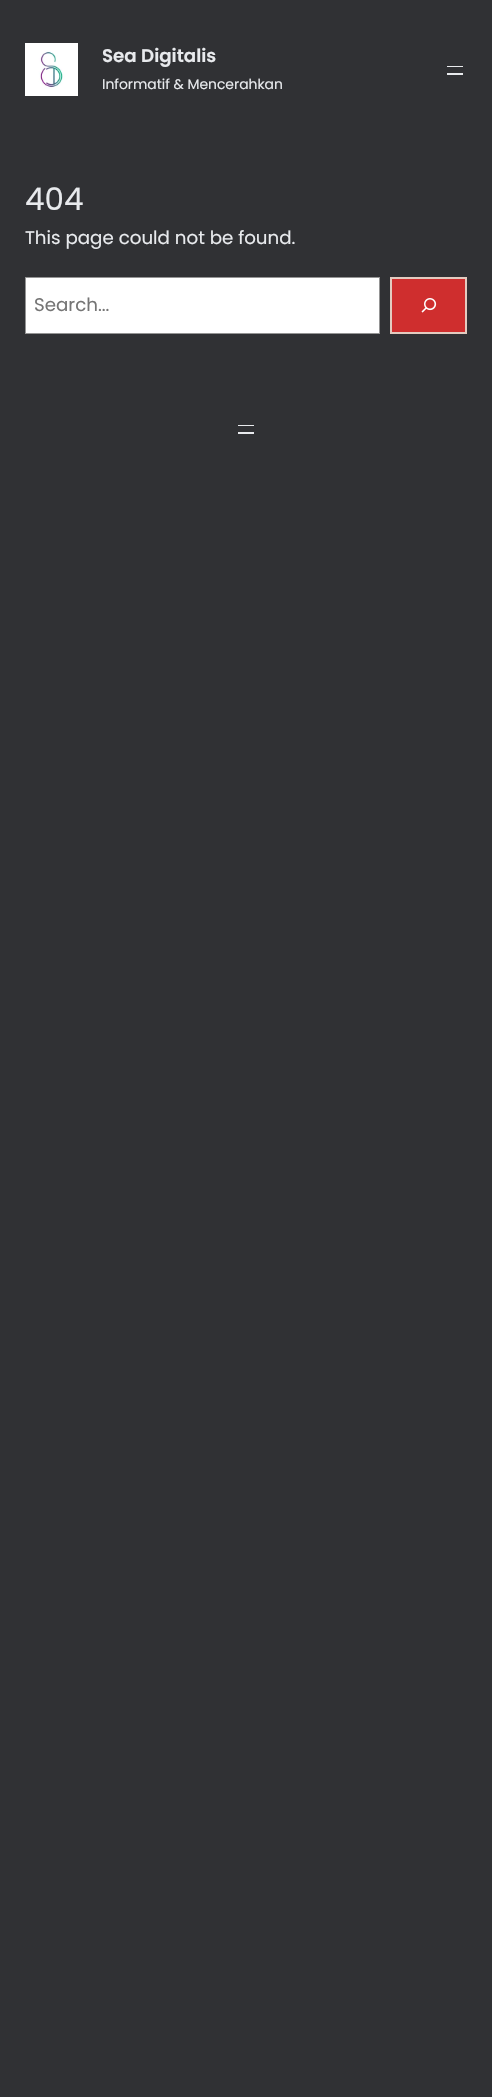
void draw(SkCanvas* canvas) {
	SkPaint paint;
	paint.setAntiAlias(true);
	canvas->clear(0xff303134);
	canvas->drawImageRect(SkImages::DeferredFromEncodedData(SkData::MakeFromFileName("img1.png")), SkRect::MakeXYWH(25, 43, 53, 53), SkSamplingOptions());
	SkFont f1(fontMgr->matchFamilyStyle("Poppins", SkFontStyle(600, SkFontStyle::kNormal_Width, SkFontStyle::kUpright_Slant)), 18.25);
	f1.setSubpixel(true);
	paint.setColor(0xffe8eaed);
	canvas->drawString("Sea Digitalis", 102, 62, f1, paint);
	SkFont f2(fontMgr->matchFamilyStyle("Poppins", SkFontStyle::Normal()), 13.9);
	f2.setSubpixel(true);
	canvas->drawString("Informatif & Mencerahkan", 102, 89, f2, paint);
	canvas->drawRect(SkRect::MakeXYWH(447, 66, 16, 1), paint);
	canvas->drawRect(SkRect::MakeXYWH(447, 73, 16, 2), paint);
	SkFont f3(fontMgr->matchFamilyStyle("Poppins", SkFontStyle::Normal()), 31);
	f3.setSubpixel(true);
	canvas->drawString("404", 25, 210, f3, paint);
	SkFont f4(fontMgr->matchFamilyStyle("Poppins", SkFontStyle::Normal()), 18.25);
	f4.setSubpixel(true);
	canvas->drawString("This page could not be found.", 25, 244, f4, paint);
	paint.setColor(0xffffffff);
	canvas->drawRect(SkRect::MakeXYWH(25.5, 277.5, 354, 56), paint);
	paint.setStroke(true);
	paint.setStrokeWidth(1);
	paint.setColor(0xff949494);
	canvas->drawRect(SkRect::MakeXYWH(25.5, 277.5, 354, 56), paint);
	paint.setStroke(false);
	paint.setColor(0xff757575);
	canvas->drawString("Search...", 34, 311, f4, paint);
	paint.setColor(0xffcf2e2e);
	canvas->drawRect(SkRect::MakeXYWH(391, 278, 75, 55), paint);
	paint.setStroke(true);
	paint.setStrokeWidth(2);
	paint.setColor(0xffe3cbc0);
	canvas->drawRect(SkRect::MakeXYWH(391, 278, 75, 55), paint);
	canvas->drawImageRect(SkImages::DeferredFromEncodedData(SkData::MakeFromFileName("img2.png")), SkRect::MakeXYWH(421, 298, 16, 15), SkSamplingOptions());
	paint.setStroke(false);
	paint.setColor(0xffe8eaed);
	canvas->drawRect(SkRect::MakeXYWH(238, 425, 16, 1), paint);
	canvas->drawRect(SkRect::MakeXYWH(238, 432, 16, 2), paint);
}
